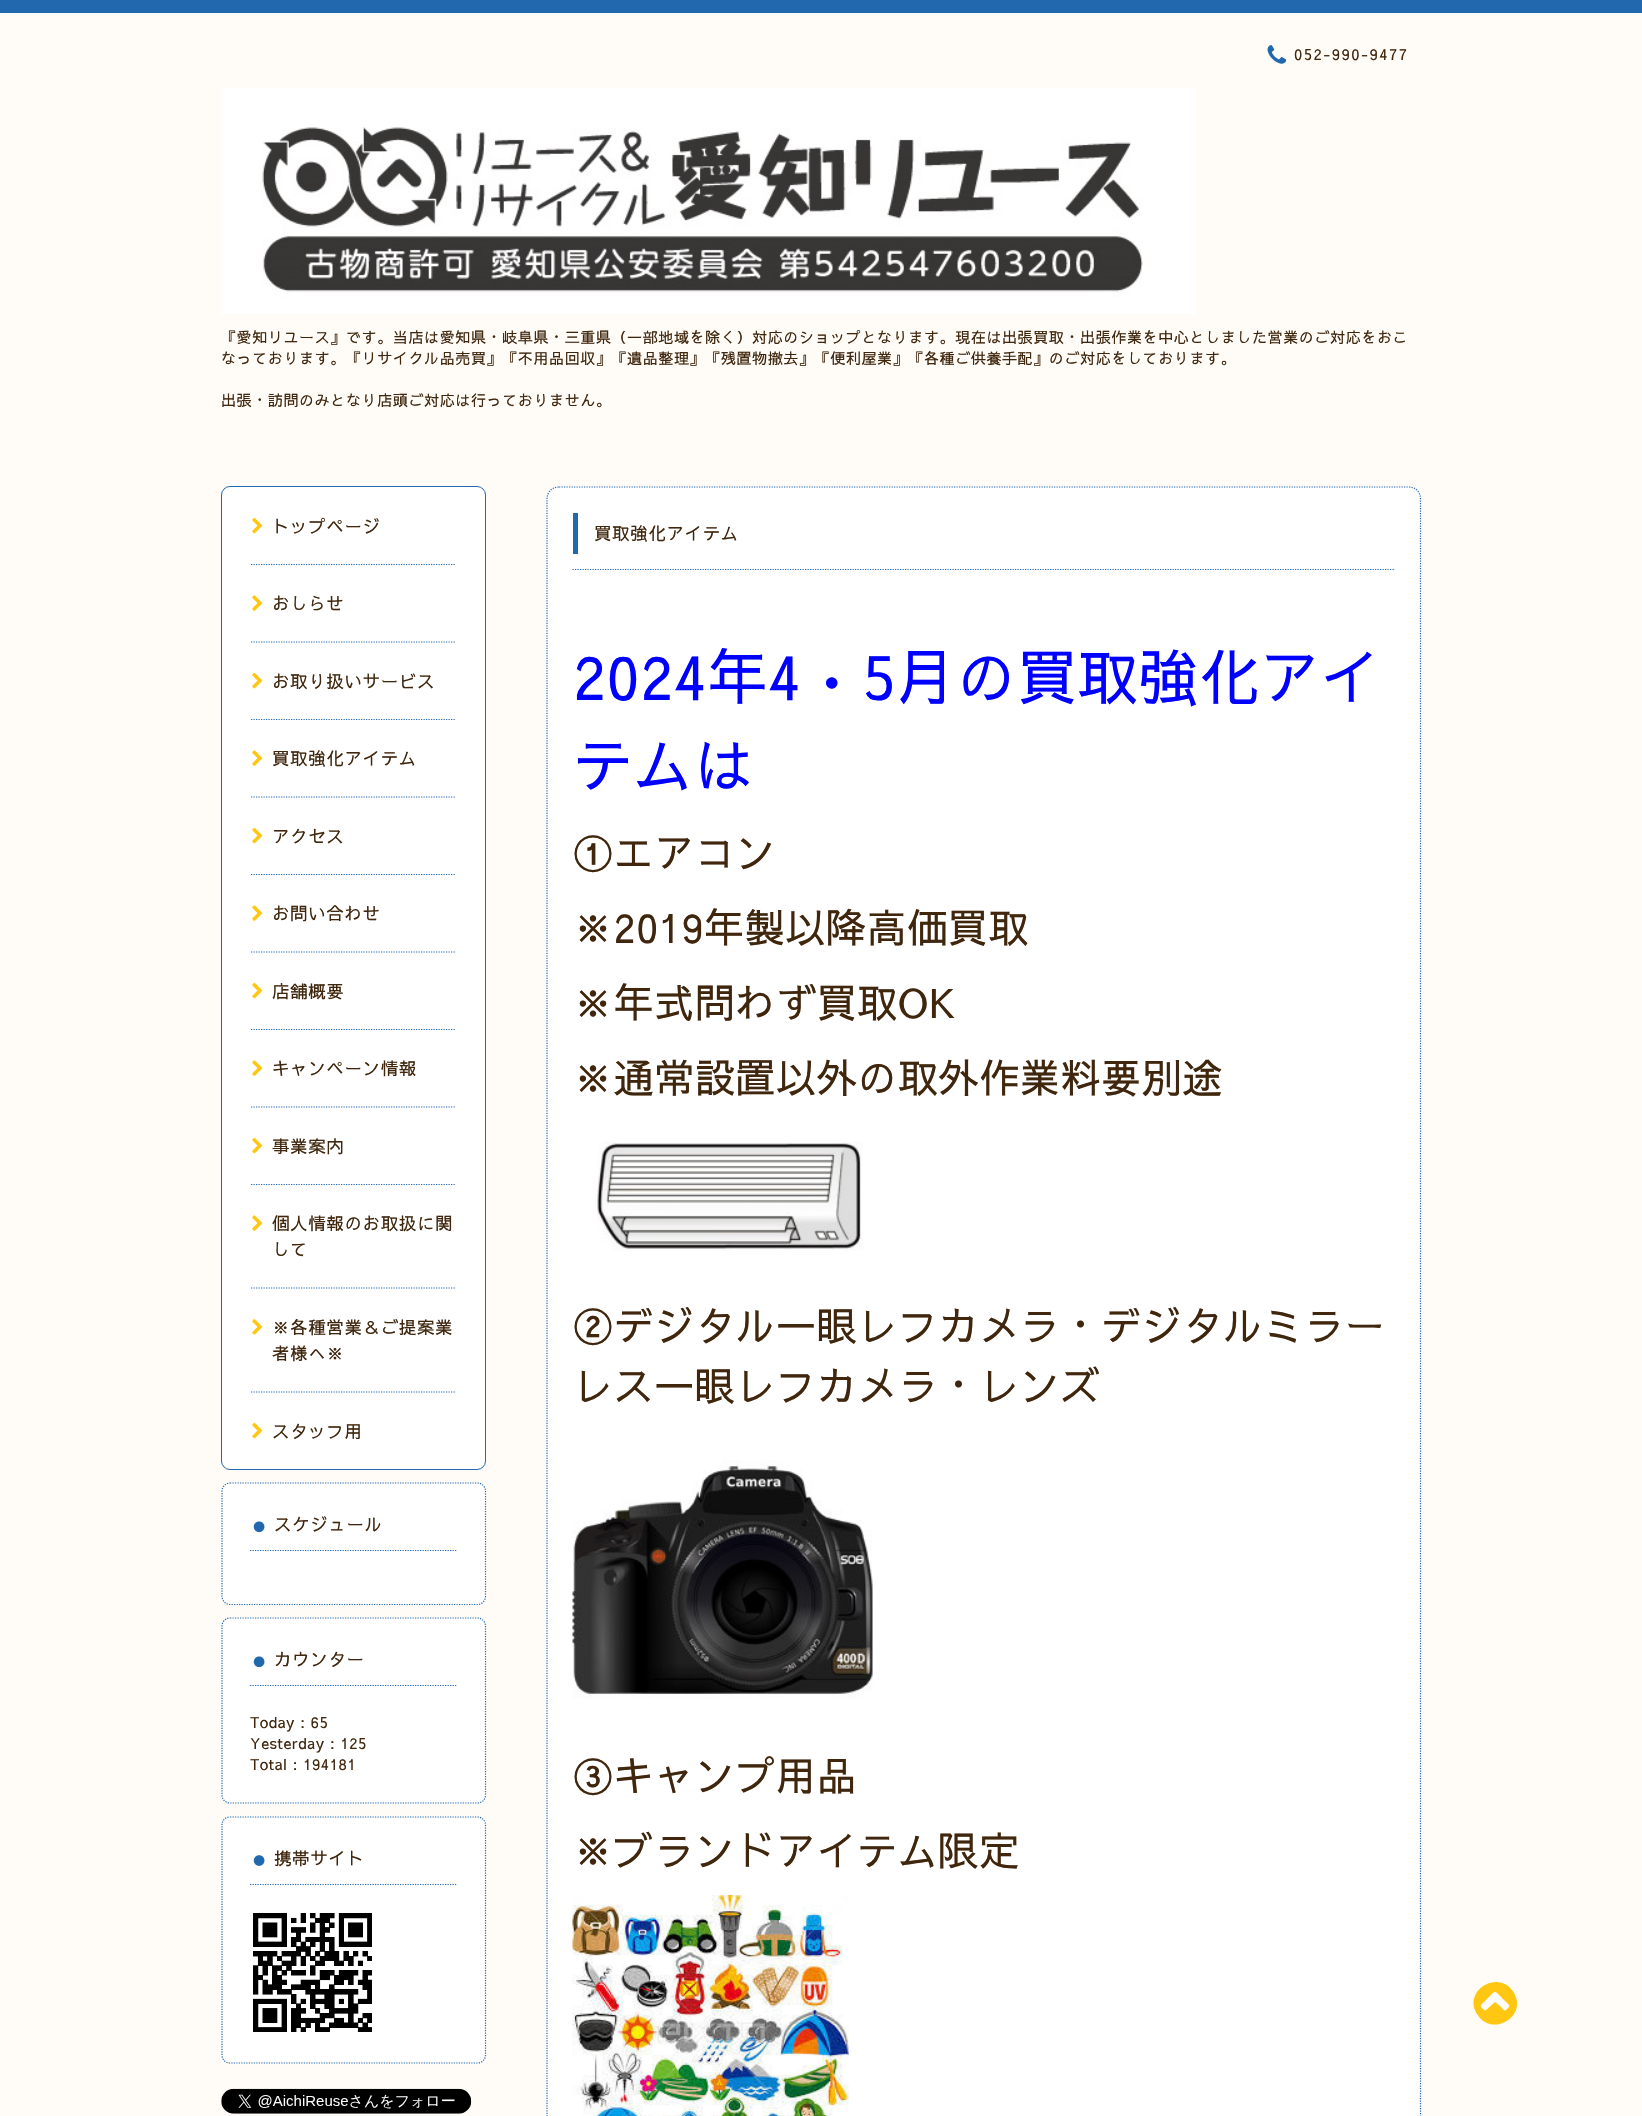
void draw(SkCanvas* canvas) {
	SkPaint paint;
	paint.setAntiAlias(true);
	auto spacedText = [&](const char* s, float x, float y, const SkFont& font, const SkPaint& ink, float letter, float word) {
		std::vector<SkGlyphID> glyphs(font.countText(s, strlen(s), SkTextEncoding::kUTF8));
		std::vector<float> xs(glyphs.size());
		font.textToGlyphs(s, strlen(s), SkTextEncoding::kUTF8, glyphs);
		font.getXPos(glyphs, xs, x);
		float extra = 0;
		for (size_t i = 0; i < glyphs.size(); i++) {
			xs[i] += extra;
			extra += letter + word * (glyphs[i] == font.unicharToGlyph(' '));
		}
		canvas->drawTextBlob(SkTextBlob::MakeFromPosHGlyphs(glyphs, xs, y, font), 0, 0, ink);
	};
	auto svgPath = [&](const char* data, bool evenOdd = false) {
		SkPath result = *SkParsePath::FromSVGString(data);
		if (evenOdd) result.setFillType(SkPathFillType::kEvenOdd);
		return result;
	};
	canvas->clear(0xfffffcf8);
	paint.setColor(0xff2268af);
	canvas->drawRect(SkRect::MakeXYWH(0, 0, 1642, 13), paint);
	canvas->drawImageRect(SkImages::DeferredFromEncodedData(SkData::MakeFromFileName("img1.png")), SkRect::MakeXYWH(1267, 45, 20, 19), SkSamplingOptions());
	SkFont f1(fontMgr->matchFamilyStyle("Sawarabi Gothic", SkFontStyle::Normal()), 15);
	f1.setSubpixel(true);
	paint.setColor(0xff3f260d);
	spacedText("052-990-9477", 1294, 60, f1, paint, 1.5, 0);
	canvas->drawImageRect(SkImages::DeferredFromEncodedData(SkData::MakeFromFileName("img2.png")), SkRect::MakeXYWH(221, 88, 974, 226), SkSamplingOptions());
	spacedText("『愛知リユース』です。当店は愛知県・岐阜県・三重県（一部地域を除く）対応のショップとなります。現在は出張買取・出張作業を中心としました営業のご対応をおこ", 221, 343, f1, paint, 0.62, 0);
	spacedText("なっております。『リサイクル品売買』『不用品回収』『遺品整理』『残置物撤去』『便利屋業』『各種ご供養手配』のご対応をしております。", 221, 364, f1, paint, 0.62, 0);
	spacedText("出張・訪問のみとなり店頭ご対応は行っておりません。", 221, 406, f1, paint, 0.62, 0);
	paint.setColor(0xffffffff);
	canvas->drawRoundRect(SkRect::MakeXYWH(221.5, 486.5, 264, 983), 8.5, 8.5, paint);
	paint.setStroke(true);
	paint.setStrokeWidth(1);
	paint.setColor(0xff2268af);
	canvas->drawRoundRect(SkRect::MakeXYWH(221.5, 486.5, 264, 983), 8.5, 8.5, paint);
	paint.setStrokeWidth(1.2);
	paint.setPathEffect(SkDashPathEffect::Make({{1.25f, 1.25f}}, 0));
	canvas->drawPath(svgPath("M251 564.5H456"), paint);
	paint.setPathEffect(nullptr);
	canvas->drawImageRect(SkImages::DeferredFromEncodedData(SkData::MakeFromFileName("img3.png")), SkRect::MakeXYWH(252, 517, 11, 17), SkSamplingOptions());
	SkFont f2(fontMgr->matchFamilyStyle("Sawarabi Gothic", SkFontStyle::Normal()), 17.5);
	f2.setSubpixel(true);
	paint.setStroke(false);
	paint.setColor(0xff3f260d);
	spacedText("トップページ", 272, 533, f2, paint, 0.62, 0);
	paint.setStroke(true);
	paint.setColor(0xff2268af);
	paint.setPathEffect(SkDashPathEffect::Make({{1.25f, 1.25f}}, 0));
	canvas->drawPath(svgPath("M251 642H456"), paint);
	paint.setPathEffect(nullptr);
	canvas->drawImageRect(SkImages::DeferredFromEncodedData(SkData::MakeFromFileName("img4.png")), SkRect::MakeXYWH(252, 595, 11, 16), SkSamplingOptions());
	paint.setStroke(false);
	paint.setColor(0xff3f260d);
	spacedText("おしらせ", 272, 610, f2, paint, 0.62, 0);
	paint.setStroke(true);
	paint.setColor(0xff2268af);
	paint.setPathEffect(SkDashPathEffect::Make({{1.25f, 1.25f}}, 0));
	canvas->drawPath(svgPath("M251 719.5H456"), paint);
	paint.setPathEffect(nullptr);
	canvas->drawImageRect(SkImages::DeferredFromEncodedData(SkData::MakeFromFileName("img3.png")), SkRect::MakeXYWH(252, 672, 11, 17), SkSamplingOptions());
	paint.setStroke(false);
	paint.setColor(0xff3f260d);
	spacedText("お取り扱いサービス", 272, 688, f2, paint, 0.62, 0);
	paint.setStroke(true);
	paint.setColor(0xff2268af);
	paint.setPathEffect(SkDashPathEffect::Make({{1.25f, 1.25f}}, 0));
	canvas->drawPath(svgPath("M251 797H456"), paint);
	paint.setPathEffect(nullptr);
	canvas->drawImageRect(SkImages::DeferredFromEncodedData(SkData::MakeFromFileName("img4.png")), SkRect::MakeXYWH(252, 750, 11, 16), SkSamplingOptions());
	paint.setStroke(false);
	paint.setColor(0xff3f260d);
	spacedText("買取強化アイテム", 272, 765, f2, paint, 0.62, 0);
	paint.setStroke(true);
	paint.setColor(0xff2268af);
	paint.setPathEffect(SkDashPathEffect::Make({{1.25f, 1.25f}}, 0));
	canvas->drawPath(svgPath("M251 874.5H456"), paint);
	paint.setPathEffect(nullptr);
	canvas->drawImageRect(SkImages::DeferredFromEncodedData(SkData::MakeFromFileName("img3.png")), SkRect::MakeXYWH(252, 827, 11, 17), SkSamplingOptions());
	paint.setStroke(false);
	paint.setColor(0xff3f260d);
	spacedText("アクセス", 272, 843, f2, paint, 0.62, 0);
	paint.setStroke(true);
	paint.setColor(0xff2268af);
	paint.setPathEffect(SkDashPathEffect::Make({{1.25f, 1.25f}}, 0));
	canvas->drawPath(svgPath("M251 952H456"), paint);
	paint.setPathEffect(nullptr);
	canvas->drawImageRect(SkImages::DeferredFromEncodedData(SkData::MakeFromFileName("img4.png")), SkRect::MakeXYWH(252, 905, 11, 16), SkSamplingOptions());
	paint.setStroke(false);
	paint.setColor(0xff3f260d);
	spacedText("お問い合わせ", 272, 920, f2, paint, 0.62, 0);
	paint.setStroke(true);
	paint.setColor(0xff2268af);
	paint.setPathEffect(SkDashPathEffect::Make({{1.25f, 1.25f}}, 0));
	canvas->drawPath(svgPath("M251 1029.5H456"), paint);
	paint.setPathEffect(nullptr);
	canvas->drawImageRect(SkImages::DeferredFromEncodedData(SkData::MakeFromFileName("img3.png")), SkRect::MakeXYWH(252, 982, 11, 17), SkSamplingOptions());
	paint.setStroke(false);
	paint.setColor(0xff3f260d);
	spacedText("店舗概要", 272, 998, f2, paint, 0.62, 0);
	paint.setStroke(true);
	paint.setColor(0xff2268af);
	paint.setPathEffect(SkDashPathEffect::Make({{1.25f, 1.25f}}, 0));
	canvas->drawPath(svgPath("M251 1107H456"), paint);
	paint.setPathEffect(nullptr);
	canvas->drawImageRect(SkImages::DeferredFromEncodedData(SkData::MakeFromFileName("img4.png")), SkRect::MakeXYWH(252, 1060, 11, 16), SkSamplingOptions());
	paint.setStroke(false);
	paint.setColor(0xff3f260d);
	spacedText("キャンペーン情報", 272, 1075, f2, paint, 0.62, 0);
	paint.setStroke(true);
	paint.setColor(0xff2268af);
	paint.setPathEffect(SkDashPathEffect::Make({{1.25f, 1.25f}}, 0));
	canvas->drawPath(svgPath("M251 1184.5H456"), paint);
	paint.setPathEffect(nullptr);
	canvas->drawImageRect(SkImages::DeferredFromEncodedData(SkData::MakeFromFileName("img3.png")), SkRect::MakeXYWH(252, 1137, 11, 17), SkSamplingOptions());
	paint.setStroke(false);
	paint.setColor(0xff3f260d);
	spacedText("事業案内", 272, 1153, f2, paint, 0.62, 0);
	paint.setStroke(true);
	paint.setColor(0xff2268af);
	paint.setPathEffect(SkDashPathEffect::Make({{1.25f, 1.25f}}, 0));
	canvas->drawPath(svgPath("M251 1288H456"), paint);
	paint.setPathEffect(nullptr);
	canvas->drawImageRect(SkImages::DeferredFromEncodedData(SkData::MakeFromFileName("img4.png")), SkRect::MakeXYWH(252, 1215, 11, 16), SkSamplingOptions());
	paint.setStroke(false);
	paint.setColor(0xff3f260d);
	spacedText("個人情報のお取扱に関", 272, 1230, f2, paint, 0.62, 0);
	spacedText("して", 272, 1256, f2, paint, 0.62, 0);
	paint.setStroke(true);
	paint.setColor(0xff2268af);
	paint.setPathEffect(SkDashPathEffect::Make({{1.25f, 1.25f}}, 0));
	canvas->drawPath(svgPath("M251 1392H456"), paint);
	paint.setPathEffect(nullptr);
	canvas->drawImageRect(SkImages::DeferredFromEncodedData(SkData::MakeFromFileName("img5.png")), SkRect::MakeXYWH(252, 1319, 11, 16), SkSamplingOptions());
	paint.setStroke(false);
	paint.setColor(0xff3f260d);
	spacedText("※各種営業＆ご提案業", 272, 1334, f2, paint, 0.62, 0);
	spacedText("者様へ※", 272, 1360, f2, paint, 0.62, 0);
	canvas->drawImageRect(SkImages::DeferredFromEncodedData(SkData::MakeFromFileName("img3.png")), SkRect::MakeXYWH(252, 1422, 11, 17), SkSamplingOptions());
	spacedText("スタッフ用", 272, 1438, f2, paint, 0.62, 0);
	paint.setColor(0xffffffff);
	canvas->drawRoundRect(SkRect::MakeXYWH(221, 1483, 265, 122), 9, 9, paint);
	paint.setStroke(true);
	paint.setColor(0xff2268af);
	paint.setPathEffect(SkDashPathEffect::Make({{1.25f, 1.25f}}, 0));
	canvas->drawPath(svgPath("M230 1483H477.5C482 1483 485.5 1487 485.5 1491V1596C485.5 1600.5 482 1604.5 477.5 1604.5H230C225.5 1604.5 222 1600.5 222 1596V1491C222 1487 225.5 1483 230 1483Z"), paint);
	paint.setPathEffect(nullptr);
	paint.setPathEffect(SkDashPathEffect::Make({{1.25f, 1.25f}}, 0));
	canvas->drawPath(svgPath("M250 1550.5H457.5"), paint);
	paint.setPathEffect(nullptr);
	canvas->drawImageRect(SkImages::DeferredFromEncodedData(SkData::MakeFromFileName("img6.png")), SkRect::MakeXYWH(253, 1521, 12, 12), SkSamplingOptions());
	paint.setStroke(false);
	paint.setColor(0xff3f260d);
	spacedText("スケジュール", 274, 1531, f2, paint, 0.62, 0);
	paint.setColor(0xffffffff);
	canvas->drawRoundRect(SkRect::MakeXYWH(221, 1618, 265, 186), 9, 9, paint);
	paint.setStroke(true);
	paint.setColor(0xff2268af);
	paint.setPathEffect(SkDashPathEffect::Make({{1.25f, 1.25f}}, 0));
	canvas->drawPath(svgPath("M230 1618H477.5C482 1618 485.5 1622 485.5 1626V1795C485.5 1799.5 482 1803 477.5 1803H230C225.5 1803 222 1799.5 222 1795V1626C222 1622 225.5 1618 230 1618Z"), paint);
	paint.setPathEffect(nullptr);
	paint.setPathEffect(SkDashPathEffect::Make({{1.25f, 1.25f}}, 0));
	canvas->drawPath(svgPath("M250 1685.5H457.5"), paint);
	paint.setPathEffect(nullptr);
	canvas->drawImageRect(SkImages::DeferredFromEncodedData(SkData::MakeFromFileName("img6.png")), SkRect::MakeXYWH(253, 1656, 12, 12), SkSamplingOptions());
	paint.setStroke(false);
	paint.setColor(0xff3f260d);
	spacedText("カウンター", 274, 1666, f2, paint, 0.62, 0);
	spacedText("Today : 65", 250, 1728, f1, paint, 0.62, 0);
	spacedText("Yesterday : 125", 250, 1749, f1, paint, 0.62, 0);
	spacedText("Total : 194181", 250, 1770, f1, paint, 0.62, 0);
	paint.setColor(0xffffffff);
	canvas->drawRoundRect(SkRect::MakeXYWH(221, 1816, 265, 248), 9, 9, paint);
	paint.setStroke(true);
	paint.setColor(0xff2268af);
	paint.setPathEffect(SkDashPathEffect::Make({{1.25f, 1.25f}}, 0));
	canvas->drawPath(svgPath("M230 1817H477.5C482 1817 485.5 1820.5 485.5 1825V2055C485.5 2059.5 482 2063 477.5 2063H230C225.5 2063 222 2059.5 222 2055V1825C222 1820.5 225.5 1817 230 1817Z"), paint);
	paint.setPathEffect(nullptr);
	paint.setPathEffect(SkDashPathEffect::Make({{1.25f, 1.25f}}, 0));
	canvas->drawPath(svgPath("M250 1884.5H457.5"), paint);
	paint.setPathEffect(nullptr);
	canvas->drawImageRect(SkImages::DeferredFromEncodedData(SkData::MakeFromFileName("img7.png")), SkRect::MakeXYWH(253, 1855, 12, 11), SkSamplingOptions());
	paint.setStroke(false);
	paint.setColor(0xff3f260d);
	spacedText("携帯サイト", 274, 1865, f2, paint, 0.62, 0);
	canvas->drawImageRect(SkImages::DeferredFromEncodedData(SkData::MakeFromFileName("img8.png")), SkRect::MakeXYWH(253, 1913, 119, 119), SkSamplingOptions());
	canvas->drawImageRect(SkImages::DeferredFromEncodedData(SkData::MakeFromFileName("img9.png")), SkRect::MakeXYWH(221, 2088, 251, 26), SkSamplingOptions());
	paint.setColor(0xffffffff);
	canvas->drawRoundRect(SkRect::MakeXYWH(546, 486, 875, 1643), 13, 13, paint);
	paint.setStroke(true);
	paint.setColor(0xff2268af);
	paint.setPathEffect(SkDashPathEffect::Make({{1.25f, 1.25f}}, 0));
	canvas->drawPath(svgPath("M559 487H1409C1415.5 487 1420.5 492 1420.5 499V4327.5C1420.5 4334 1415.5 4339.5 1409 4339.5H559C552 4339.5 547 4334 547 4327.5V499C547 492 552 487 559 487Z"), paint);
	paint.setPathEffect(nullptr);
	paint.setStroke(false);
	canvas->drawRect(SkRect::MakeXYWH(573, 513, 5, 41), paint);
	paint.setColor(0xff3f260d);
	spacedText("買取強化アイテム", 594, 540, f2, paint, 0.62, 0);
	paint.setStroke(true);
	paint.setColor(0xff2268af);
	paint.setPathEffect(SkDashPathEffect::Make({{1.25f, 1.25f}}, 0));
	canvas->drawPath(svgPath("M572.5 569.5H1395"), paint);
	paint.setPathEffect(nullptr);
	SkFont f3(fontMgr->matchFamilyStyle("Sawarabi Gothic", SkFontStyle::Normal()), 60);
	f3.setSubpixel(true);
	paint.setStroke(false);
	paint.setColor(0xff0000ff);
	spacedText("2024年4•5月の買取強化アイ", 573, 700, f3, paint, 0.62, 0);
	spacedText("テムは", 573, 788, f3, paint, 0.62, 0);
	SkFont f4(fontMgr->matchFamilyStyle("Sawarabi Gothic", SkFontStyle::Normal()), 40);
	f4.setSubpixel(true);
	paint.setColor(0xff3f260d);
	spacedText("①エアコン", 573, 868, f4, paint, 0.62, 0);
	spacedText("※2019年製以降高価買取", 573, 943, f4, paint, 0.62, 0);
	spacedText("※年式問わず買取OK", 573, 1018, f4, paint, 0.62, 0);
	spacedText("※通常設置以外の取外作業料要別途", 573, 1093, f4, paint, 0.62, 0);
	canvas->drawImageRect(SkImages::DeferredFromEncodedData(SkData::MakeFromFileName("img10.png")), SkRect::MakeXYWH(597, 1141, 266, 110), SkSamplingOptions());
	spacedText("②デジタル一眼レフカメラ・デジタルミラー", 573, 1341, f4, paint, 0.62, 0);
	spacedText("レス一眼レフカメラ・レンズ", 573, 1401, f4, paint, 0.62, 0);
	canvas->drawImageRect(SkImages::DeferredFromEncodedData(SkData::MakeFromFileName("img11.png")), SkRect::MakeXYWH(572, 1460, 301, 239), SkSamplingOptions());
	spacedText("③キャンプ用品", 573, 1791, f4, paint, 0.62, 0);
	spacedText("※ブランドアイテム限定", 573, 1866, f4, paint, 0.62, 0);
	canvas->drawImageRect(SkImages::DeferredFromEncodedData(SkData::MakeFromFileName("img12.png")), SkRect::MakeXYWH(572, 1895, 277, 221), SkSamplingOptions());
	paint.setColor(0xffffc612);
	canvas->drawPath(svgPath("M1506 2010C1511 2005 1510 2006 1505 2001C1493 1989 1497 1989 1485 2001C1481 2005 1479 2005 1483 2009C1484 2010 1485 2011 1486 2010L1495 2002L1501 2007C1502 2008 1504 2012 1506 2010ZM1514 1993C1528 2017 1491 2038 1477 2014C1462 1990 1500 1968 1514 1993Z"), paint);
}
